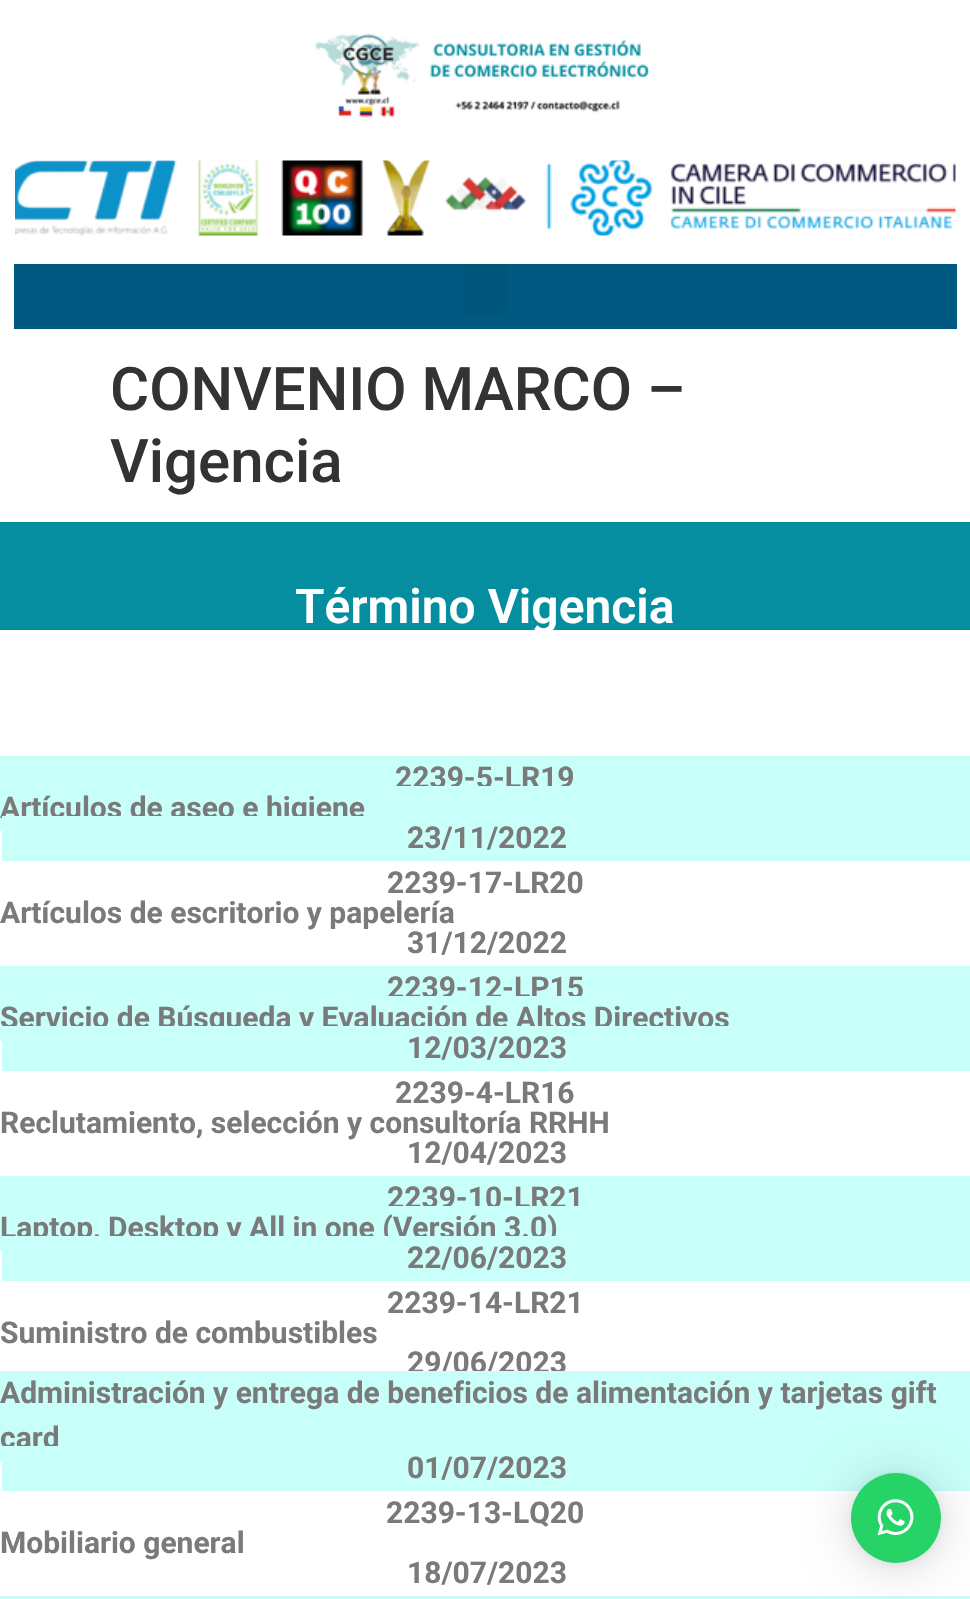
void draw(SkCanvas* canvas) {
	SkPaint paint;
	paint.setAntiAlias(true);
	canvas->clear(0xffffffff);
	canvas->drawImageRect(SkImages::DeferredFromEncodedData(SkData::MakeFromFileName("img1.png")), SkRect::MakeXYWH(315, 34, 335, 84), SkSamplingOptions());
	canvas->drawImageRect(SkImages::DeferredFromEncodedData(SkData::MakeFromFileName("img2.png")), SkRect::MakeXYWH(15, 160, 941, 76), SkSamplingOptions());
	paint.setColor(0xff005980);
	canvas->drawRect(SkRect::MakeXYWH(14, 264, 943, 65), paint);
	paint.setColor(0xff00557a);
	canvas->drawRoundRect(SkRect::MakeXYWH(464, 264, 43, 50), 5, 5, paint);
	SkFont f1(fontMgr->matchFamilyStyle("Roboto", SkFontStyle(500, SkFontStyle::kNormal_Width, SkFontStyle::kUpright_Slant)), 60);
	f1.setSubpixel(true);
	paint.setColor(0xff333333);
	canvas->drawString("CONVENIO MARCO –", 110, 410, f1, paint);
	canvas->drawString("Vigencia", 110, 482, f1, paint);
	paint.setColor(0xff048ea0);
	canvas->drawRect(SkRect::MakeXYWH(0, 522, 970, 108), paint);
	SkFont f2(fontMgr->matchFamilyStyle("Roboto", SkFontStyle(600, SkFontStyle::kNormal_Width, SkFontStyle::kUpright_Slant)), 48);
	f2.setSubpixel(true);
	paint.setColor(0xffffffff);
	canvas->drawString("Término Vigencia", 295, 623, f2, paint);
	paint.setColor(0xffc9fff9);
	canvas->drawRect(SkRect::MakeXYWH(0, 756, 970, 30), paint);
	SkFont f3(fontMgr->matchFamilyStyle("Roboto", SkFontStyle::Bold()), 30);
	f3.setSubpixel(true);
	paint.setColor(0xff7a7a7a);
	canvas->drawString("2239-5-LR19", 395, 788, f3, paint);
	paint.setColor(0xffc9fff9);
	canvas->drawRect(SkRect::MakeXYWH(0, 786, 970, 45), paint);
	paint.setColor(0xff7a7a7a);
	canvas->drawString("Artículos de aseo e higiene", 0, 818, f3, paint);
	paint.setColor(0xffc9fff9);
	canvas->drawRect(SkRect::MakeXYWH(2, 816, 968, 45), paint);
	paint.setColor(0xff7a7a7a);
	canvas->drawString("23/11/2022", 407, 848, f3, paint);
	canvas->drawString("2239-17-LR20", 387, 893, f3, paint);
	canvas->drawString("Artículos de escritorio y papelería", 0, 923, f3, paint);
	canvas->drawString("31/12/2022", 407, 953, f3, paint);
	paint.setColor(0xffc9fff9);
	canvas->drawRect(SkRect::MakeXYWH(0, 966, 970, 30), paint);
	paint.setColor(0xff7a7a7a);
	canvas->drawString("2239-12-LP15", 387, 998, f3, paint);
	paint.setColor(0xffc9fff9);
	canvas->drawRect(SkRect::MakeXYWH(0, 996, 970, 45), paint);
	paint.setColor(0xff7a7a7a);
	canvas->drawString("Servicio de Búsqueda y Evaluación de Altos Directivos", 0, 1028, f3, paint);
	paint.setColor(0xffc9fff9);
	canvas->drawRect(SkRect::MakeXYWH(2, 1026, 968, 45), paint);
	paint.setColor(0xff7a7a7a);
	canvas->drawString("12/03/2023", 407, 1058, f3, paint);
	canvas->drawString("2239-4-LR16", 395, 1103, f3, paint);
	canvas->drawString("Reclutamiento, selección y consultoría RRHH", 0, 1133, f3, paint);
	canvas->drawString("12/04/2023", 407, 1163, f3, paint);
	paint.setColor(0xffc9fff9);
	canvas->drawRect(SkRect::MakeXYWH(0, 1176, 970, 30), paint);
	paint.setColor(0xff7a7a7a);
	canvas->drawString("2239-10-LR21", 387, 1208, f3, paint);
	paint.setColor(0xffc9fff9);
	canvas->drawRect(SkRect::MakeXYWH(0, 1206, 970, 45), paint);
	paint.setColor(0xff7a7a7a);
	canvas->drawString("Laptop, Desktop y All in one (Versión 3.0)", 0, 1238, f3, paint);
	paint.setColor(0xffc9fff9);
	canvas->drawRect(SkRect::MakeXYWH(2, 1236, 968, 45), paint);
	paint.setColor(0xff7a7a7a);
	canvas->drawString("22/06/2023", 407, 1268, f3, paint);
	canvas->drawString("2239-14-LR21", 387, 1313, f3, paint);
	canvas->drawString("Suministro de combustibles", 0, 1343, f3, paint);
	canvas->drawString("29/06/2023", 407, 1373, f3, paint);
	paint.setColor(0xffc9fff9);
	canvas->drawRect(SkRect::MakeXYWH(0, 1371, 970, 90), paint);
	paint.setColor(0xff7a7a7a);
	canvas->drawString("Administración y entrega de beneficios de alimentación y tarjetas gift", 0, 1403, f3, paint);
	canvas->drawString("card", 0, 1448, f3, paint);
	paint.setColor(0xffc9fff9);
	canvas->drawRect(SkRect::MakeXYWH(2, 1446, 968, 45), paint);
	paint.setColor(0xff7a7a7a);
	canvas->drawString("01/07/2023", 407, 1478, f3, paint);
	canvas->drawString("2239-13-LQ20", 386, 1523, f3, paint);
	canvas->drawString("Mobiliario general", 0, 1553, f3, paint);
	canvas->drawString("18/07/2023", 407, 1583, f3, paint);
	paint.setColor(0xffc9fff9);
	canvas->drawRect(SkRect::MakeXYWH(0, 1596, 970, 3), paint);
	paint.setColor(0x29000000);
	paint.setMaskFilter(SkMaskFilter::MakeBlur(kNormal_SkBlurStyle, 24));
	canvas->drawRoundRect(SkRect::MakeXYWH(851, 1476, 90, 90), 45, 45, paint);
	paint.setMaskFilter(nullptr);
	paint.setColor(0x0f000000);
	paint.setMaskFilter(SkMaskFilter::MakeBlur(kNormal_SkBlurStyle, 4.5));
	canvas->drawRoundRect(SkRect::MakeXYWH(851, 1475, 90, 90), 45, 45, paint);
	paint.setMaskFilter(nullptr);
	paint.setColor(0xff25d366);
	canvas->drawCircle(896, 1518, 45, paint);
	canvas->drawImageRect(SkImages::DeferredFromEncodedData(SkData::MakeFromFileName("img3.png")), SkRect::MakeXYWH(877, 1499, 37, 37), SkSamplingOptions());
}
